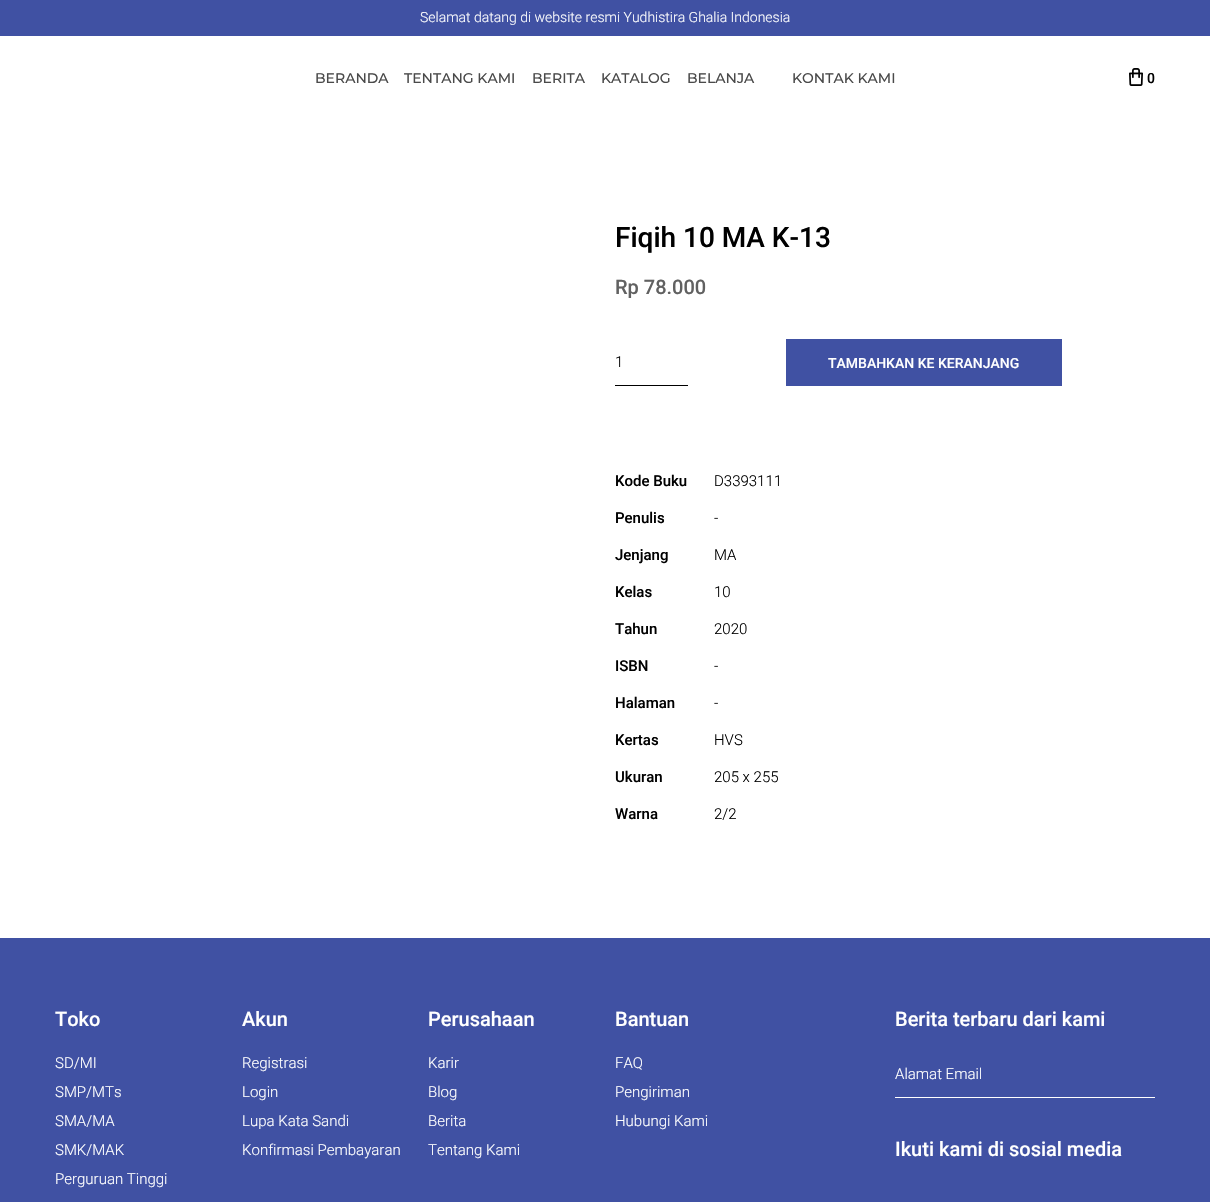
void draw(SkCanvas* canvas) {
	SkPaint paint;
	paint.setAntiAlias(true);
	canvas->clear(0xffffffff);
	paint.setColor(0xff4051a3);
	canvas->drawRect(SkRect::MakeXYWH(0, 0, 1210, 36), paint);
	SkFont f1(fontMgr->matchFamilyStyle("Roboto", SkFontStyle(300, SkFontStyle::kNormal_Width, SkFontStyle::kUpright_Slant)), 14);
	f1.setSubpixel(true);
	paint.setColor(0xffffffff);
	canvas->drawString("Selamat datang di website resmi Yudhistira Ghalia Indonesia", 420, 22, f1, paint);
	SkFont f2(fontMgr->matchFamilyStyle("Montserrat", SkFontStyle(500, SkFontStyle::kNormal_Width, SkFontStyle::kUpright_Slant)), 14);
	f2.setSubpixel(true);
	paint.setColor(0xff4a4a4a);
	canvas->drawString("BERANDA", 315, 83, f2, paint);
	canvas->drawString("TENTANG KAMI", 404, 83, f2, paint);
	canvas->drawString("BERITA", 532, 83, f2, paint);
	canvas->drawString("KATALOG", 601, 83, f2, paint);
	canvas->drawString("BELANJA", 687, 83, f2, paint);
	canvas->drawString("KONTAK KAMI", 792, 83, f2, paint);
	canvas->drawImageRect(SkImages::DeferredFromEncodedData(SkData::MakeFromFileName("img1.png")), SkRect::MakeXYWH(1129, 68, 14, 18), SkSamplingOptions());
	SkFont f3(fontMgr->matchFamilyStyle("Roboto", SkFontStyle(500, SkFontStyle::kNormal_Width, SkFontStyle::kUpright_Slant)), 14);
	f3.setSubpixel(true);
	paint.setColor(0xff000000);
	canvas->drawString("0", 1147, 83, f3, paint);
	SkFont f4(fontMgr->matchFamilyStyle("Roboto", SkFontStyle(500, SkFontStyle::kNormal_Width, SkFontStyle::kUpright_Slant)), 28);
	f4.setSubpixel(true);
	canvas->drawString("Fiqih 10 MA K-13", 615, 247, f4, paint);
	SkFont f5(fontMgr->matchFamilyStyle("Roboto", SkFontStyle(500, SkFontStyle::kNormal_Width, SkFontStyle::kUpright_Slant)), 20);
	f5.setSubpixel(true);
	paint.setColor(0xff616161);
	canvas->drawString("Rp 78.000", 615, 294, f5, paint);
	paint.setColor(0xff000000);
	canvas->drawRect(SkRect::MakeXYWH(615, 385, 73, 1), paint);
	SkFont f6(fontMgr->matchFamilyStyle("Roboto", SkFontStyle(300, SkFontStyle::kNormal_Width, SkFontStyle::kUpright_Slant)), 15);
	f6.setSubpixel(true);
	canvas->drawString("1", 615, 367, f6, paint);
	paint.setColor(0xff4051a3);
	canvas->drawRect(SkRect::MakeXYWH(786, 339, 276, 47), paint);
	paint.setColor(0xffffffff);
	canvas->drawString("TAMBAHKAN KE KERANJANG", 828, 368, f3, paint);
	SkFont f7(fontMgr->matchFamilyStyle("Roboto", SkFontStyle(500, SkFontStyle::kNormal_Width, SkFontStyle::kUpright_Slant)), 15);
	f7.setSubpixel(true);
	paint.setColor(0xff000000);
	canvas->drawString("Kode Buku", 615, 486, f7, paint);
	canvas->drawString("D3393111", 714, 486, f6, paint);
	canvas->drawString("Penulis", 615, 523, f7, paint);
	canvas->drawString("-", 714, 523, f6, paint);
	canvas->drawString("Jenjang", 615, 560, f7, paint);
	canvas->drawString("MA", 714, 560, f6, paint);
	canvas->drawString("Kelas", 615, 597, f7, paint);
	canvas->drawString("10", 714, 597, f6, paint);
	canvas->drawString("Tahun", 615, 634, f7, paint);
	canvas->drawString("2020", 714, 634, f6, paint);
	canvas->drawString("ISBN", 615, 671, f7, paint);
	canvas->drawString("-", 714, 671, f6, paint);
	canvas->drawString("Halaman", 615, 708, f7, paint);
	canvas->drawString("-", 714, 708, f6, paint);
	canvas->drawString("Kertas", 615, 745, f7, paint);
	canvas->drawString("HVS", 714, 745, f6, paint);
	canvas->drawString("Ukuran", 615, 782, f7, paint);
	canvas->drawString("205 x 255", 714, 782, f6, paint);
	canvas->drawString("Warna", 615, 819, f7, paint);
	canvas->drawString("2/2", 714, 819, f6, paint);
	paint.setColor(0xff4051a3);
	canvas->drawRect(SkRect::MakeXYWH(0, 938, 1210, 264), paint);
	paint.setColor(0xffffffff);
	canvas->drawString("Toko", 55, 1026, f5, paint);
	canvas->drawString("SD/MI", 55, 1068, f6, paint);
	canvas->drawString("SMP/MTs", 55, 1097, f6, paint);
	canvas->drawString("SMA/MA", 55, 1126, f6, paint);
	canvas->drawString("SMK/MAK", 55, 1155, f6, paint);
	canvas->drawString("Perguruan Tinggi", 55, 1184, f6, paint);
	canvas->drawString("Akun", 242, 1026, f5, paint);
	canvas->drawString("Registrasi", 242, 1068, f6, paint);
	canvas->drawString("Login", 242, 1097, f6, paint);
	canvas->drawString("Lupa Kata Sandi", 242, 1126, f6, paint);
	canvas->drawString("Konfirmasi Pembayaran", 242, 1155, f6, paint);
	canvas->drawString("Perusahaan", 428, 1026, f5, paint);
	canvas->drawString("Karir", 428, 1068, f6, paint);
	canvas->drawString("Blog", 428, 1097, f6, paint);
	canvas->drawString("Berita", 428, 1126, f6, paint);
	canvas->drawString("Tentang Kami", 428, 1155, f6, paint);
	canvas->drawString("Bantuan", 615, 1026, f5, paint);
	canvas->drawString("FAQ", 615, 1068, f6, paint);
	canvas->drawString("Pengiriman", 615, 1097, f6, paint);
	canvas->drawString("Hubungi Kami", 615, 1126, f6, paint);
	canvas->drawString("Berita terbaru dari kami", 895, 1026, f5, paint);
	canvas->drawRect(SkRect::MakeXYWH(895, 1097, 260, 1), paint);
	canvas->drawString("Alamat Email", 895, 1079, f6, paint);
	canvas->drawString("Ikuti kami di sosial media", 895, 1156, f5, paint);
}
